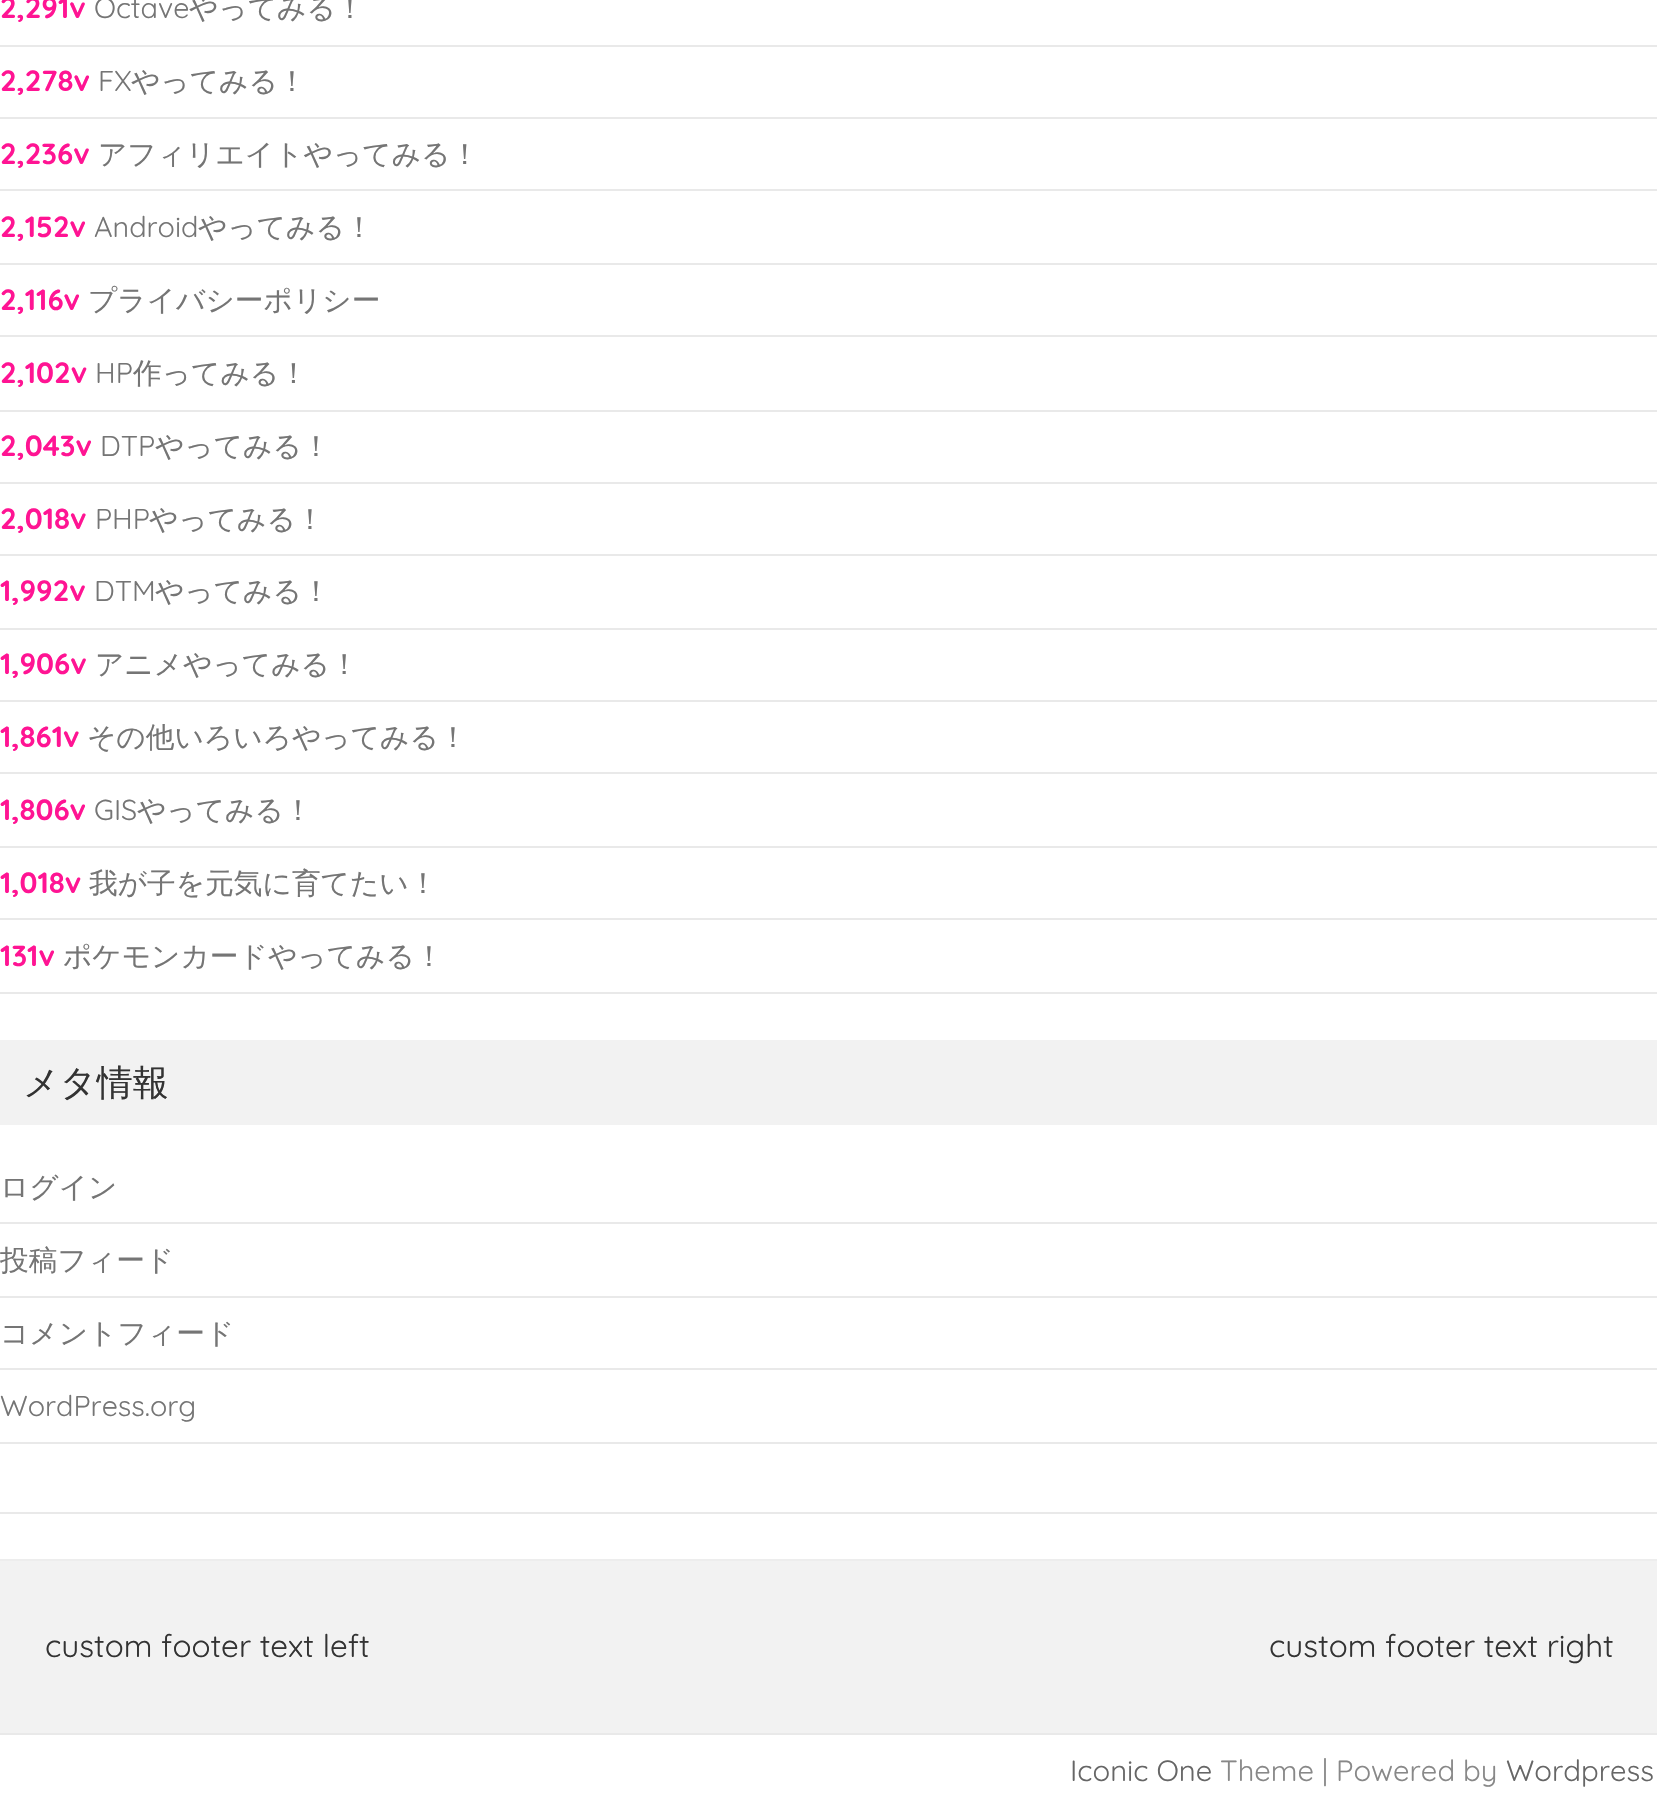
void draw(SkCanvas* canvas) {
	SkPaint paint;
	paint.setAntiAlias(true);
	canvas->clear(0xffffffff);
	paint.setColor(0xffe9e9e9);
	canvas->drawRect(SkRect::MakeXYWH(0, 45, 1657, 2), paint);
	SkFont f1(fontMgr->matchFamilyStyle("Quicksand", SkFontStyle::Bold()), 29.25);
	f1.setSubpixel(true);
	paint.setColor(0xffff1493);
	canvas->drawString("2,291v", 0, 18, f1, paint);
	SkFont f2(fontMgr->matchFamilyStyle("Quicksand", SkFontStyle::Normal()), 28.7);
	f2.setSubpixel(true);
	paint.setColor(0xff757575);
	canvas->drawString("Octave", 94, 18, f2, paint);
	SkFont f3(fontMgr->matchFamilyStyle("WenQuanYi Zen Hei", SkFontStyle(500, SkFontStyle::kNormal_Width, SkFontStyle::kUpright_Slant)), 28.7);
	f3.setSubpixel(true);
	canvas->drawString("やってみる！", 189, 18, f3, paint);
	paint.setColor(0xffe9e9e9);
	canvas->drawRect(SkRect::MakeXYWH(0, 117, 1657, 2), paint);
	paint.setColor(0xffff1493);
	canvas->drawString("2,278v", 0, 91, f1, paint);
	paint.setColor(0xff757575);
	canvas->drawString("FX", 98, 91, f2, paint);
	canvas->drawString("やってみる！", 131, 91, f3, paint);
	paint.setColor(0xffe9e9e9);
	canvas->drawRect(SkRect::MakeXYWH(0, 189, 1657, 2), paint);
	paint.setColor(0xffff1493);
	canvas->drawString("2,236v", 0, 164, f1, paint);
	paint.setColor(0xff757575);
	canvas->drawString("アフィリエイトやってみる！", 98, 164, f3, paint);
	paint.setColor(0xffe9e9e9);
	canvas->drawRect(SkRect::MakeXYWH(0, 263, 1657, 2), paint);
	paint.setColor(0xffff1493);
	canvas->drawString("2,152v", 0, 237, f1, paint);
	paint.setColor(0xff757575);
	canvas->drawString("Android", 94, 237, f2, paint);
	canvas->drawString("やってみる！", 198, 237, f3, paint);
	paint.setColor(0xffe9e9e9);
	canvas->drawRect(SkRect::MakeXYWH(0, 335, 1657, 2), paint);
	paint.setColor(0xffff1493);
	canvas->drawString("2,116v", 0, 310, f1, paint);
	paint.setColor(0xff757575);
	canvas->drawString("プライバシーポリシー", 88, 310, f3, paint);
	paint.setColor(0xffe9e9e9);
	canvas->drawRect(SkRect::MakeXYWH(0, 410, 1657, 2), paint);
	paint.setColor(0xffff1493);
	canvas->drawString("2,102v", 0, 383, f1, paint);
	paint.setColor(0xff757575);
	canvas->drawString("HP", 95, 383, f2, paint);
	canvas->drawString("作ってみる！", 133, 383, f3, paint);
	paint.setColor(0xffe9e9e9);
	canvas->drawRect(SkRect::MakeXYWH(0, 482, 1657, 2), paint);
	paint.setColor(0xffff1493);
	canvas->drawString("2,043v", 0, 456, f1, paint);
	paint.setColor(0xff757575);
	canvas->drawString("DTP", 100, 456, f2, paint);
	canvas->drawString("やってみる！", 155, 456, f3, paint);
	paint.setColor(0xffe9e9e9);
	canvas->drawRect(SkRect::MakeXYWH(0, 554, 1657, 2), paint);
	paint.setColor(0xffff1493);
	canvas->drawString("2,018v", 0, 529, f1, paint);
	paint.setColor(0xff757575);
	canvas->drawString("PHP", 95, 529, f2, paint);
	canvas->drawString("やってみる！", 149, 529, f3, paint);
	paint.setColor(0xffe9e9e9);
	canvas->drawRect(SkRect::MakeXYWH(0, 628, 1657, 2), paint);
	paint.setColor(0xffff1493);
	canvas->drawString("1,992v", 0, 601, f1, paint);
	paint.setColor(0xff757575);
	canvas->drawString("DTM", 94, 601, f2, paint);
	canvas->drawString("やってみる！", 155, 601, f3, paint);
	paint.setColor(0xffe9e9e9);
	canvas->drawRect(SkRect::MakeXYWH(0, 700, 1657, 2), paint);
	paint.setColor(0xffff1493);
	canvas->drawString("1,906v", 0, 674, f1, paint);
	paint.setColor(0xff757575);
	canvas->drawString("アニメやってみる！", 95, 674, f3, paint);
	paint.setColor(0xffe9e9e9);
	canvas->drawRect(SkRect::MakeXYWH(0, 772, 1657, 2), paint);
	paint.setColor(0xffff1493);
	canvas->drawString("1,861v", 0, 747, f1, paint);
	paint.setColor(0xff757575);
	canvas->drawString("その他いろいろやってみる！", 87, 747, f3, paint);
	paint.setColor(0xffe9e9e9);
	canvas->drawRect(SkRect::MakeXYWH(0, 846, 1657, 2), paint);
	paint.setColor(0xffff1493);
	canvas->drawString("1,806v", 0, 820, f1, paint);
	paint.setColor(0xff757575);
	canvas->drawString("GIS", 94, 820, f2, paint);
	canvas->drawString("やってみる！", 137, 820, f3, paint);
	paint.setColor(0xffe9e9e9);
	canvas->drawRect(SkRect::MakeXYWH(0, 918, 1657, 2), paint);
	paint.setColor(0xffff1493);
	canvas->drawString("1,018v", 0, 893, f1, paint);
	paint.setColor(0xff757575);
	canvas->drawString("我が子を元気に育てたい！", 89, 893, f3, paint);
	paint.setColor(0xffe9e9e9);
	canvas->drawRect(SkRect::MakeXYWH(0, 992, 1657, 2), paint);
	paint.setColor(0xffff1493);
	canvas->drawString("131v", 0, 966, f1, paint);
	paint.setColor(0xff757575);
	canvas->drawString("ポケモンカードやってみる！", 63, 966, f3, paint);
	paint.setColor(0xfff2f2f2);
	canvas->drawRect(SkRect::MakeXYWH(0, 1040, 1657, 85), paint);
	SkFont f4(fontMgr->matchFamilyStyle("WenQuanYi Zen Hei", SkFontStyle(500, SkFontStyle::kNormal_Width, SkFontStyle::kUpright_Slant)), 36);
	f4.setSubpixel(true);
	paint.setColor(0xff333333);
	canvas->drawString("メタ情報", 23, 1095, f4, paint);
	paint.setColor(0xffe9e9e9);
	canvas->drawRect(SkRect::MakeXYWH(0, 1222, 1657, 2), paint);
	paint.setColor(0xff757575);
	canvas->drawString("ログイン", 0, 1197, f3, paint);
	paint.setColor(0xffe9e9e9);
	canvas->drawRect(SkRect::MakeXYWH(0, 1296, 1657, 2), paint);
	paint.setColor(0xff757575);
	canvas->drawString("投稿フィード", 0, 1270, f3, paint);
	paint.setColor(0xffe9e9e9);
	canvas->drawRect(SkRect::MakeXYWH(0, 1368, 1657, 2), paint);
	paint.setColor(0xff757575);
	canvas->drawString("コメントフィード", 0, 1343, f3, paint);
	paint.setColor(0xffe9e9e9);
	canvas->drawRect(SkRect::MakeXYWH(0, 1442, 1657, 2), paint);
	paint.setColor(0xff757575);
	canvas->drawString("WordPress.org", 0, 1416, f2, paint);
	paint.setColor(0xffe9e9e9);
	canvas->drawRect(SkRect::MakeXYWH(0, 1512, 1657, 2), paint);
	paint.setColor(0xfff2f2f2);
	canvas->drawRect(SkRect::MakeXYWH(0, 1561, 1657, 172), paint);
	paint.setColor(0xffededed);
	canvas->drawRect(SkRect::MakeXYWH(0, 1559, 1657, 2), paint);
	paint.setColor(0xffe9e9e9);
	canvas->drawRect(SkRect::MakeXYWH(0, 1733, 1657, 2), paint);
	SkFont f5(fontMgr->matchFamilyStyle("Quicksand", SkFontStyle::Normal()), 31.5);
	f5.setSubpixel(true);
	paint.setColor(0xff333333);
	canvas->drawString("custom footer text left", 45, 1657, f5, paint);
	canvas->drawString("custom footer text right", 1269, 1657, f5, paint);
	SkFont f6(fontMgr->matchFamilyStyle("Quicksand", SkFontStyle::Normal()), 29.25);
	f6.setSubpixel(true);
	paint.setColor(0xff666666);
	canvas->drawString("Iconic One", 1070, 1781, f6, paint);
	paint.setColor(0xff888888);
	canvas->drawString("Theme | Powered by", 1220, 1781, f6, paint);
	paint.setColor(0xff666666);
	canvas->drawString("Wordpress", 1506, 1781, f6, paint);
}
